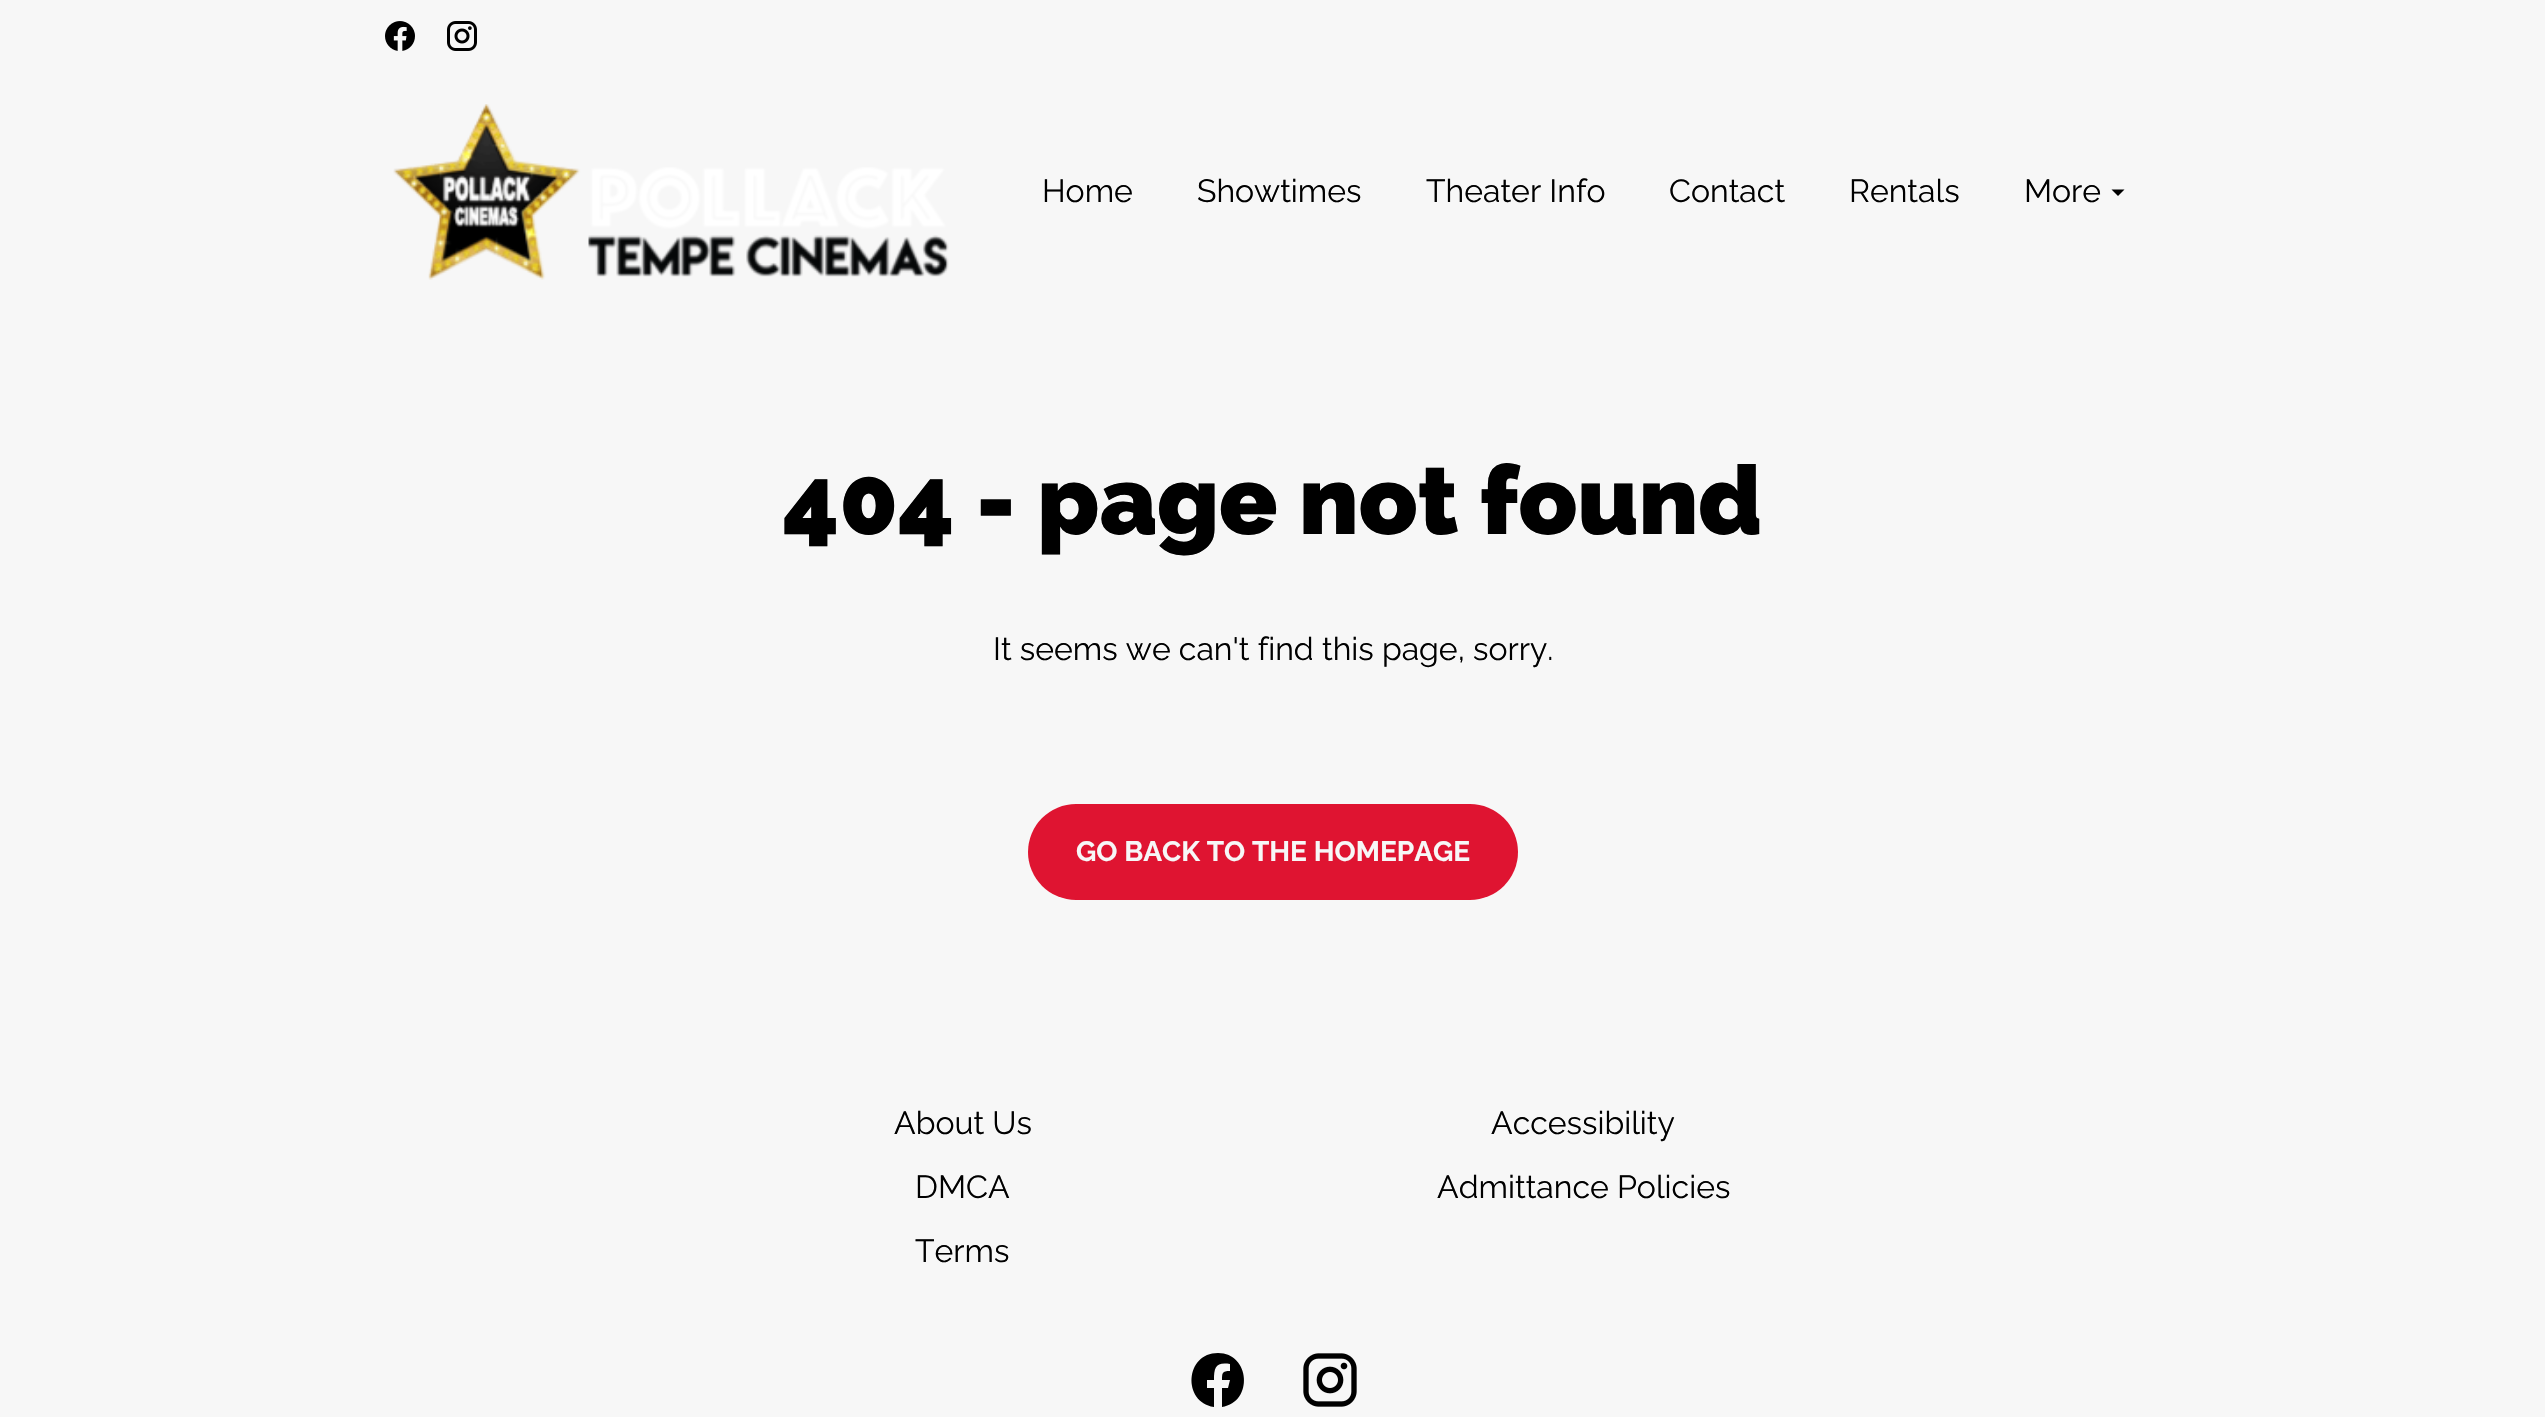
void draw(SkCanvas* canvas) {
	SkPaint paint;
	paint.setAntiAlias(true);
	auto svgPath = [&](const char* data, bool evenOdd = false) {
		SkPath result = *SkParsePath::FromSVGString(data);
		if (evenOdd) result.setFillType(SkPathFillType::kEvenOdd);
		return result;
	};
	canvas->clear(0xfff7f7f7);
	canvas->drawImageRect(SkImages::DeferredFromEncodedData(SkData::MakeFromFileName("img1.png")), SkRect::MakeXYWH(385, 21, 30, 30), SkSamplingOptions());
	canvas->drawImageRect(SkImages::DeferredFromEncodedData(SkData::MakeFromFileName("img2.png")), SkRect::MakeXYWH(447, 21, 30, 30), SkSamplingOptions());
	canvas->drawImageRect(SkImages::DeferredFromEncodedData(SkData::MakeFromFileName("img3.png")), SkRect::MakeXYWH(393, 104, 556, 176), SkSamplingOptions());
	SkFont f1(fontMgr->matchFamilyStyle("Raleway", SkFontStyle(100, SkFontStyle::kNormal_Width, SkFontStyle::kUpright_Slant)), 32);
	f1.setSubpixel(true);
	paint.setColor(0xff000000);
	canvas->drawString("Home", 1042, 202, f1, paint);
	canvas->drawString("Showtimes", 1197, 202, f1, paint);
	canvas->drawString("Theater Info", 1426, 202, f1, paint);
	canvas->drawString("Contact", 1669, 202, f1, paint);
	canvas->drawString("Rentals", 1849, 202, f1, paint);
	canvas->drawString("More", 2024, 202, f1, paint);
	canvas->drawPath(svgPath("M2111.5 189.5L2118 196L2124.5 189.5Z"), paint);
	SkFont f2(fontMgr->matchFamilyStyle("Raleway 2", SkFontStyle(100, SkFontStyle::kNormal_Width, SkFontStyle::kUpright_Slant)), 96);
	f2.setSubpixel(true);
	canvas->drawString("404 - page not found", 783, 534, f2, paint);
	canvas->drawString("It seems we can't find this page, sorry.", 993, 660, f1, paint);
	paint.setColor(0xffdf1431);
	canvas->drawRoundRect(SkRect::MakeXYWH(1028, 804, 490, 96), 48, 48, paint);
	SkFont f3(fontMgr->matchFamilyStyle("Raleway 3", SkFontStyle(100, SkFontStyle::kNormal_Width, SkFontStyle::kUpright_Slant)), 28);
	f3.setSubpixel(true);
	paint.setColor(0xfff7f7f7);
	canvas->drawString("GO BACK TO THE HOMEPAGE", 1076, 861, f3, paint);
	paint.setColor(0xff000000);
	canvas->drawString("About Us", 894, 1134, f1, paint);
	canvas->drawString("DMCA", 915, 1198, f1, paint);
	canvas->drawString("Terms", 915, 1262, f1, paint);
	canvas->drawString("Accessibility", 1491, 1134, f1, paint);
	canvas->drawString("Admittance Policies", 1437, 1198, f1, paint);
	canvas->drawPath(svgPath("M1218 1353C1185 1353 1182 1402 1214 1407V1388H1207V1380H1214C1214 1367 1216 1362 1230 1364V1371C1222 1371 1222 1373 1222 1380H1230L1228 1388H1222V1407C1254 1402 1250 1353 1218 1353Z"), paint);
	canvas->drawImageRect(SkImages::DeferredFromEncodedData(SkData::MakeFromFileName("img4.png")), SkRect::MakeXYWH(1303, 1353, 54, 54), SkSamplingOptions());
}
